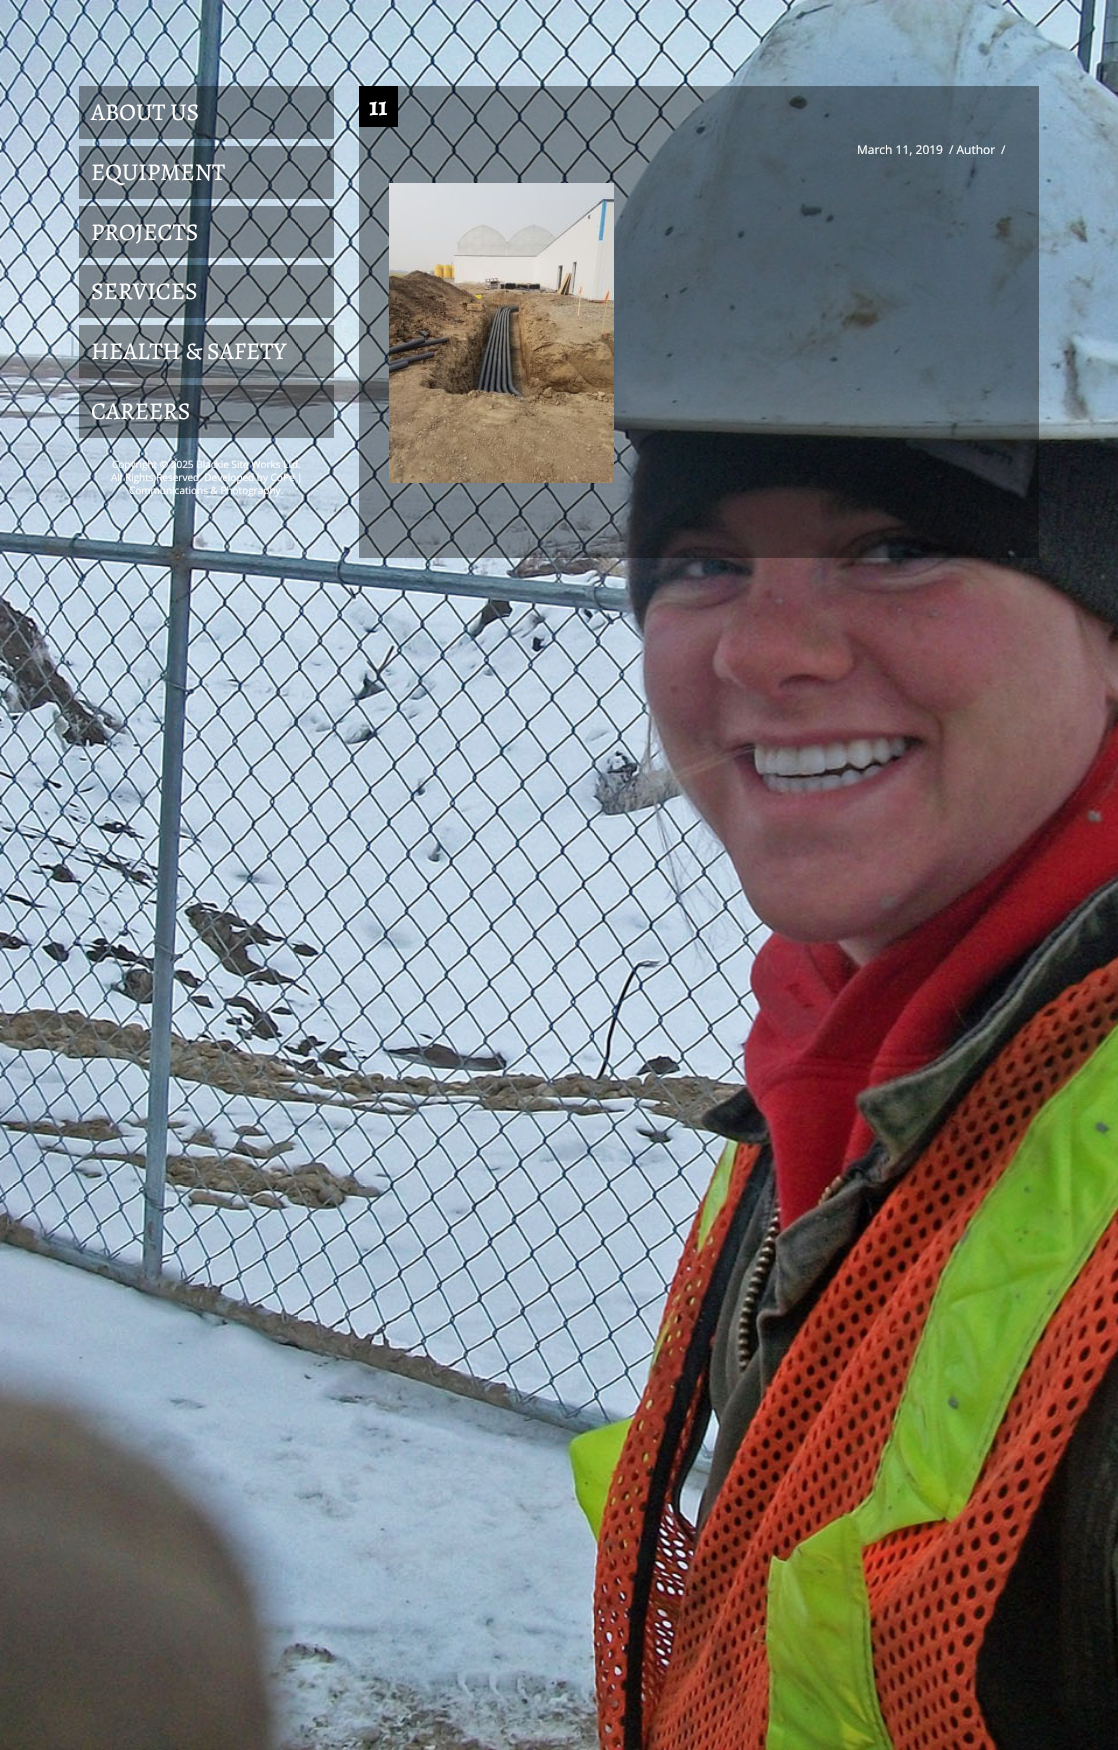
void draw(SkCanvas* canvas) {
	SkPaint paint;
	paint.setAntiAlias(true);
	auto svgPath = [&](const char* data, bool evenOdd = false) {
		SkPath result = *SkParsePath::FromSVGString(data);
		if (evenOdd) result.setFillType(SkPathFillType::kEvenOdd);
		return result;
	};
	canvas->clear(0xffffffff);
	canvas->drawImageRect(SkImages::DeferredFromEncodedData(SkData::MakeFromFileName("img1.png")), SkRect::MakeXYWH(0, 0, 1118, 1750), SkSamplingOptions());
	paint.setColor(0x66000000);
	canvas->drawRect(SkRect::MakeXYWH(79, 86, 255, 53), paint);
	SkFont f1(fontMgr->matchFamilyStyle("Alegreya", SkFontStyle::Normal()), 24);
	f1.setSubpixel(true);
	paint.setColor(0xffffffff);
	canvas->drawString("ABOUT US", 91, 120, f1, paint);
	paint.setColor(0x66000000);
	canvas->drawRect(SkRect::MakeXYWH(79, 146, 255, 53), paint);
	paint.setColor(0xffffffff);
	canvas->drawString("EQUIPMENT", 91, 180, f1, paint);
	paint.setColor(0x66000000);
	canvas->drawRect(SkRect::MakeXYWH(79, 206, 255, 52), paint);
	paint.setColor(0xffffffff);
	canvas->drawString("PROJECTS", 91, 240, f1, paint);
	paint.setColor(0x66000000);
	canvas->drawRect(SkRect::MakeXYWH(79, 265, 255, 53), paint);
	paint.setColor(0xffffffff);
	canvas->drawString("SERVICES", 91, 299, f1, paint);
	paint.setColor(0x66000000);
	canvas->drawRect(SkRect::MakeXYWH(79, 325, 255, 53), paint);
	paint.setColor(0xffffffff);
	canvas->drawString("HEALTH & SAFETY", 91, 359, f1, paint);
	paint.setColor(0x66000000);
	canvas->drawRect(SkRect::MakeXYWH(79, 385, 255, 53), paint);
	paint.setColor(0xffffffff);
	canvas->drawString("CAREERS", 91, 419, f1, paint);
	SkFont f2(fontMgr->matchFamilyStyle("Open Sans", SkFontStyle::Normal()), 10);
	f2.setSubpixel(true);
	canvas->drawString("Copyright © 2025 Blackie Site Works Ltd.", 112, 468, f2, paint);
	canvas->drawString("All Rights Reserved. Developed by CoPe |", 111, 481, f2, paint);
	canvas->drawString("Communications & Photography.", 129, 494, f2, paint);
	paint.setColor(0x66000000);
	canvas->drawRect(SkRect::MakeXYWH(359, 86, 680, 472), paint);
	paint.setColor(0xff000000);
	canvas->drawRect(SkRect::MakeXYWH(359, 86, 39, 41), paint);
	SkFont f3(fontMgr->matchFamilyStyle("Alegreya", SkFontStyle::Bold()), 26);
	f3.setSubpixel(true);
	paint.setColor(0xffffffff);
	canvas->drawString("11", 369, 115, f3, paint);
	SkFont f4(fontMgr->matchFamilyStyle("Open Sans", SkFontStyle::Normal()), 12);
	f4.setSubpixel(true);
	canvas->drawString("March 11, 2019", 857, 154, f4, paint);
	canvas->drawString("/ Author", 949, 154, f4, paint);
	paint.setStroke(true);
	paint.setStrokeWidth(1);
	paint.setColor(0xff555555);
	paint.setPathEffect(SkDashPathEffect::Make({{1, 1}}, 0));
	canvas->drawPath(svgPath("M957 158.5H995"), paint);
	paint.setPathEffect(nullptr);
	paint.setStroke(false);
	paint.setColor(0xffffffff);
	canvas->drawString("/", 1001, 154, f4, paint);
	canvas->drawImageRect(SkImages::DeferredFromEncodedData(SkData::MakeFromFileName("img2.png")), SkRect::MakeXYWH(389, 183, 225, 300), SkSamplingOptions());
}
